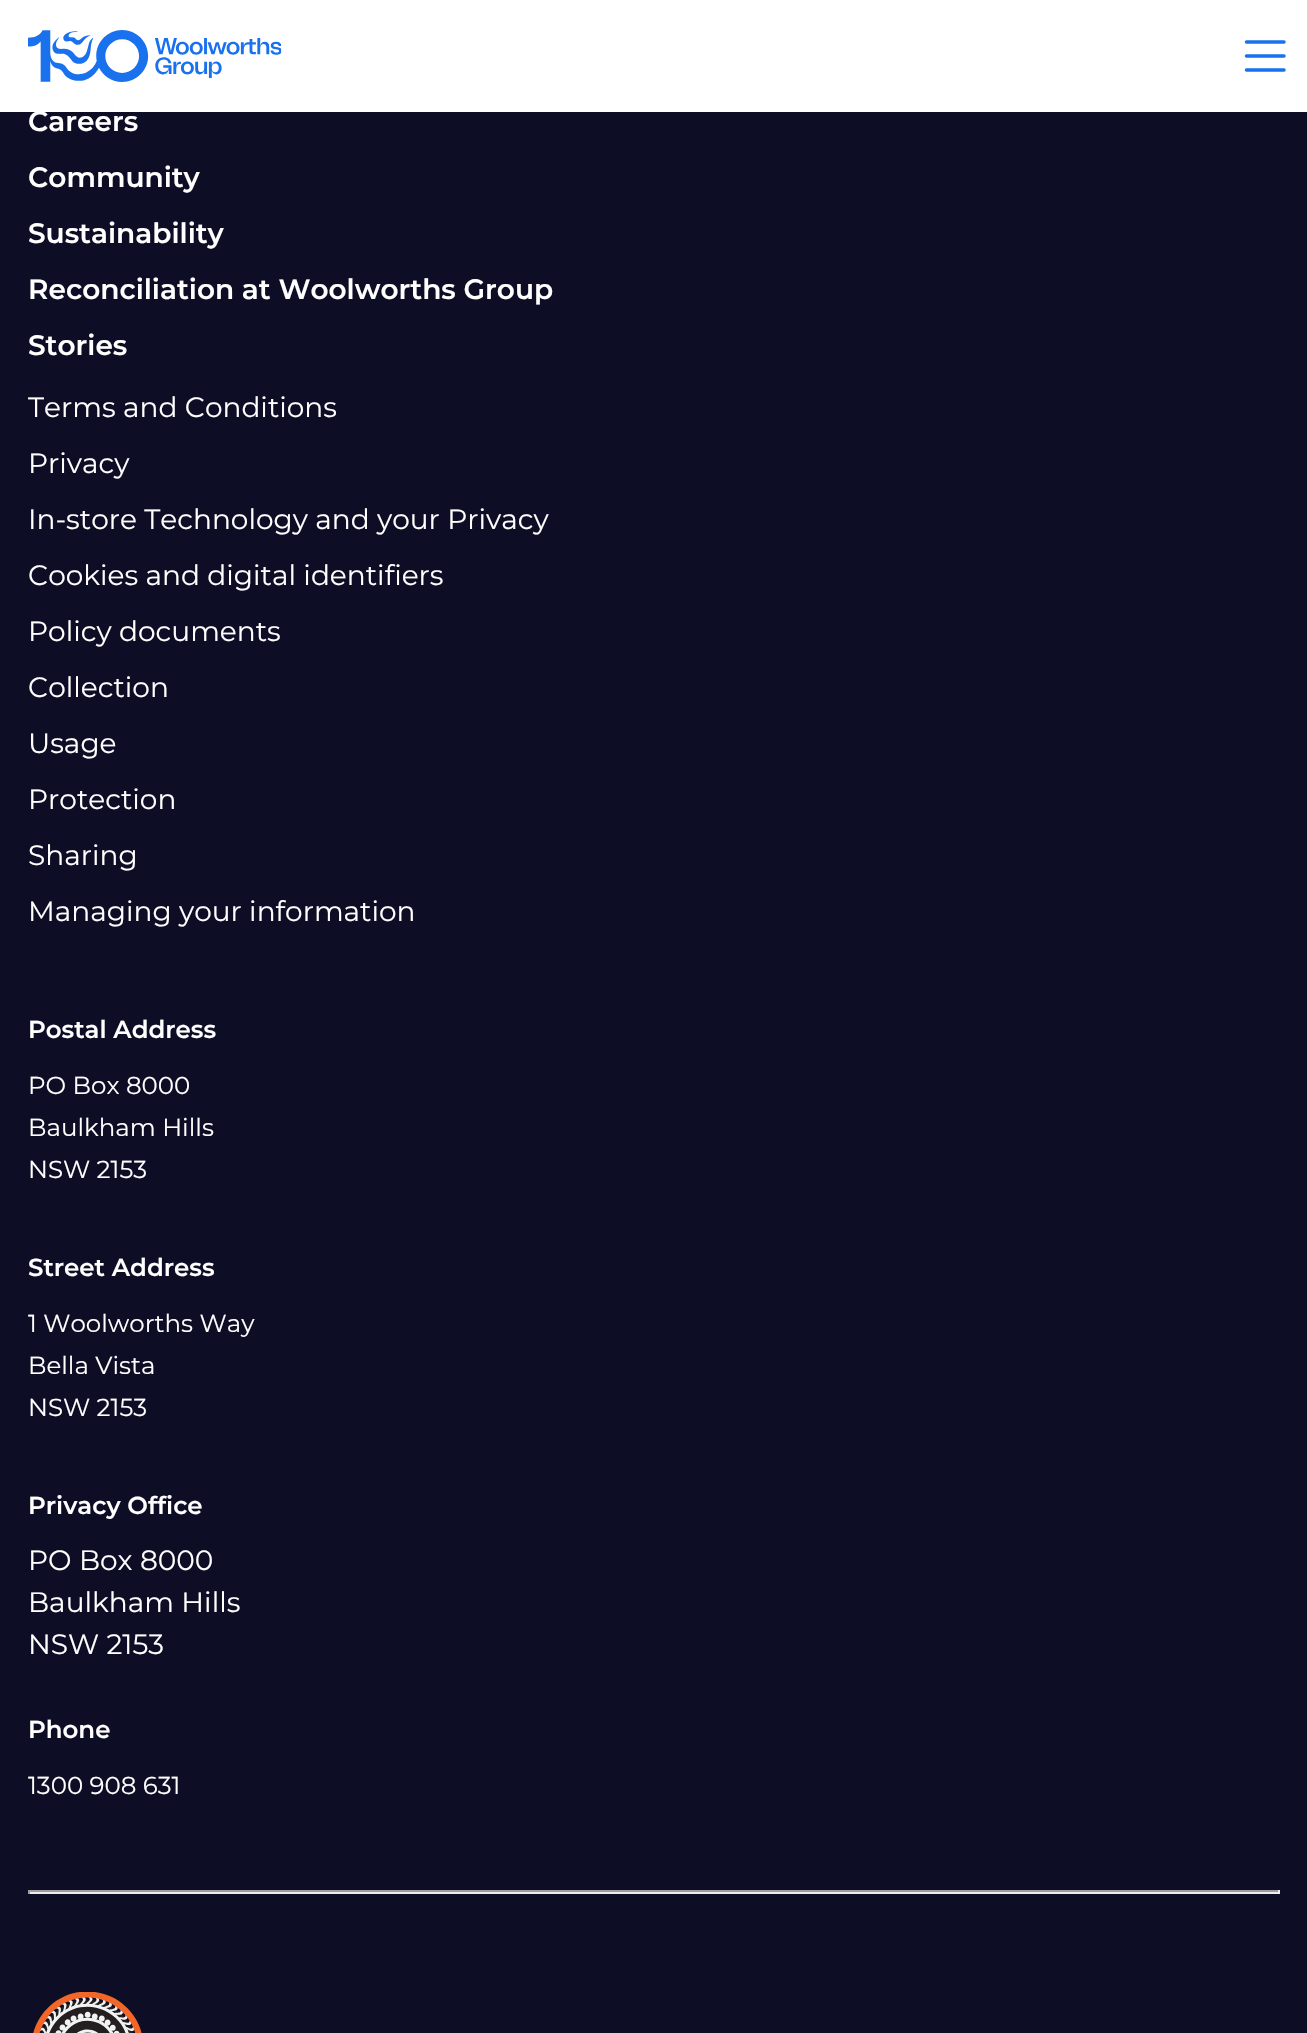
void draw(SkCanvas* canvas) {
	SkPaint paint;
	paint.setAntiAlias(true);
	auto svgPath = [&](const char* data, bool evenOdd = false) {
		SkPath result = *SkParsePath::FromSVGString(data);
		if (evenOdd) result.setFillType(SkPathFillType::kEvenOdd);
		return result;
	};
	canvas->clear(0xff0e0d26);
	paint.setColor(0xffffffff);
	canvas->drawRect(SkRect::MakeXYWH(0, 0, 1307, 112), paint);
	canvas->drawImageRect(SkImages::DeferredFromEncodedData(SkData::MakeFromFileName("img1.png")), SkRect::MakeXYWH(28, 30, 254, 52), SkSamplingOptions());
	paint.setStroke(true);
	paint.setStrokeWidth(3.5);
	paint.setStrokeCap(SkPaint::kRound_Cap);
	paint.setStrokeJoin(SkPaint::kRound_Join);
	paint.setColor(0xff1971ed);
	canvas->drawPath(svgPath("M1246.5 70H1284M1246.5 42H1284ZM1246.5 56H1284Z"), paint);
	SkFont f1(fontMgr->matchFamilyStyle("Montserrat", SkFontStyle(600, SkFontStyle::kNormal_Width, SkFontStyle::kUpright_Slant)), 28);
	f1.setSubpixel(true);
	paint.setStroke(false);
	paint.setColor(0xffffffff);
	canvas->drawString("Careers", 28, 131, f1, paint);
	canvas->drawString("Community", 28, 187, f1, paint);
	canvas->drawString("Sustainability", 28, 243, f1, paint);
	canvas->drawString("Reconciliation at Woolworths Group", 28, 299, f1, paint);
	canvas->drawString("Stories", 28, 355, f1, paint);
	SkFont f2(fontMgr->matchFamilyStyle("Montserrat", SkFontStyle::Normal()), 28);
	f2.setSubpixel(true);
	canvas->drawString("Terms and Conditions", 28, 417, f2, paint);
	canvas->drawString("Privacy", 28, 473, f2, paint);
	canvas->drawString("In-store Technology and your Privacy", 28, 529, f2, paint);
	canvas->drawString("Cookies and digital identifiers", 28, 585, f2, paint);
	canvas->drawString("Policy documents", 28, 641, f2, paint);
	canvas->drawString("Collection", 28, 697, f2, paint);
	canvas->drawString("Usage", 28, 753, f2, paint);
	canvas->drawString("Protection", 28, 809, f2, paint);
	canvas->drawString("Sharing", 28, 865, f2, paint);
	canvas->drawString("Managing your information", 28, 921, f2, paint);
	SkFont f3(fontMgr->matchFamilyStyle("Montserrat", SkFontStyle(600, SkFontStyle::kNormal_Width, SkFontStyle::kUpright_Slant)), 24.5);
	f3.setSubpixel(true);
	canvas->drawString("Postal Address", 28, 1038, f3, paint);
	SkFont f4(fontMgr->matchFamilyStyle("Montserrat", SkFontStyle::Normal()), 24.5);
	f4.setSubpixel(true);
	canvas->drawString("PO Box 8000", 28, 1094, f4, paint);
	canvas->drawString("Baulkham Hills", 28, 1136, f4, paint);
	canvas->drawString("NSW 2153", 28, 1178, f4, paint);
	canvas->drawString("Street Address", 28, 1276, f3, paint);
	canvas->drawString("1 Woolworths Way", 28, 1332, f4, paint);
	canvas->drawString("Bella Vista", 28, 1374, f4, paint);
	canvas->drawString("NSW 2153", 28, 1416, f4, paint);
	canvas->drawString("Privacy Office", 28, 1514, f3, paint);
	canvas->drawString("PO Box 8000", 28, 1570, f2, paint);
	canvas->drawString("Baulkham Hills", 28, 1612, f2, paint);
	canvas->drawString("NSW 2153", 28, 1654, f2, paint);
	canvas->drawString("Phone", 28, 1738, f3, paint);
	canvas->drawString("1300 908 631", 28, 1794, f4, paint);
	paint.setColor(0xff9f9f9f);
	canvas->drawRect(SkRect::MakeXYWH(28, 1890, 1251, 2), paint);
	paint.setColor(0xffeeeeee);
	canvas->drawRect(SkRect::MakeXYWH(1278, 1890, 2, 4), paint);
	canvas->drawRect(SkRect::MakeXYWH(28, 1892, 1251, 2), paint);
	paint.setColor(0xff9f9f9f);
	canvas->drawRect(SkRect::MakeXYWH(28, 1890, 2, 4), paint);
	canvas->drawImageRect(SkImages::DeferredFromEncodedData(SkData::MakeFromFileName("img2.png")), SkRect::MakeXYWH(33, 1992, 109, 41), SkSamplingOptions());
}
